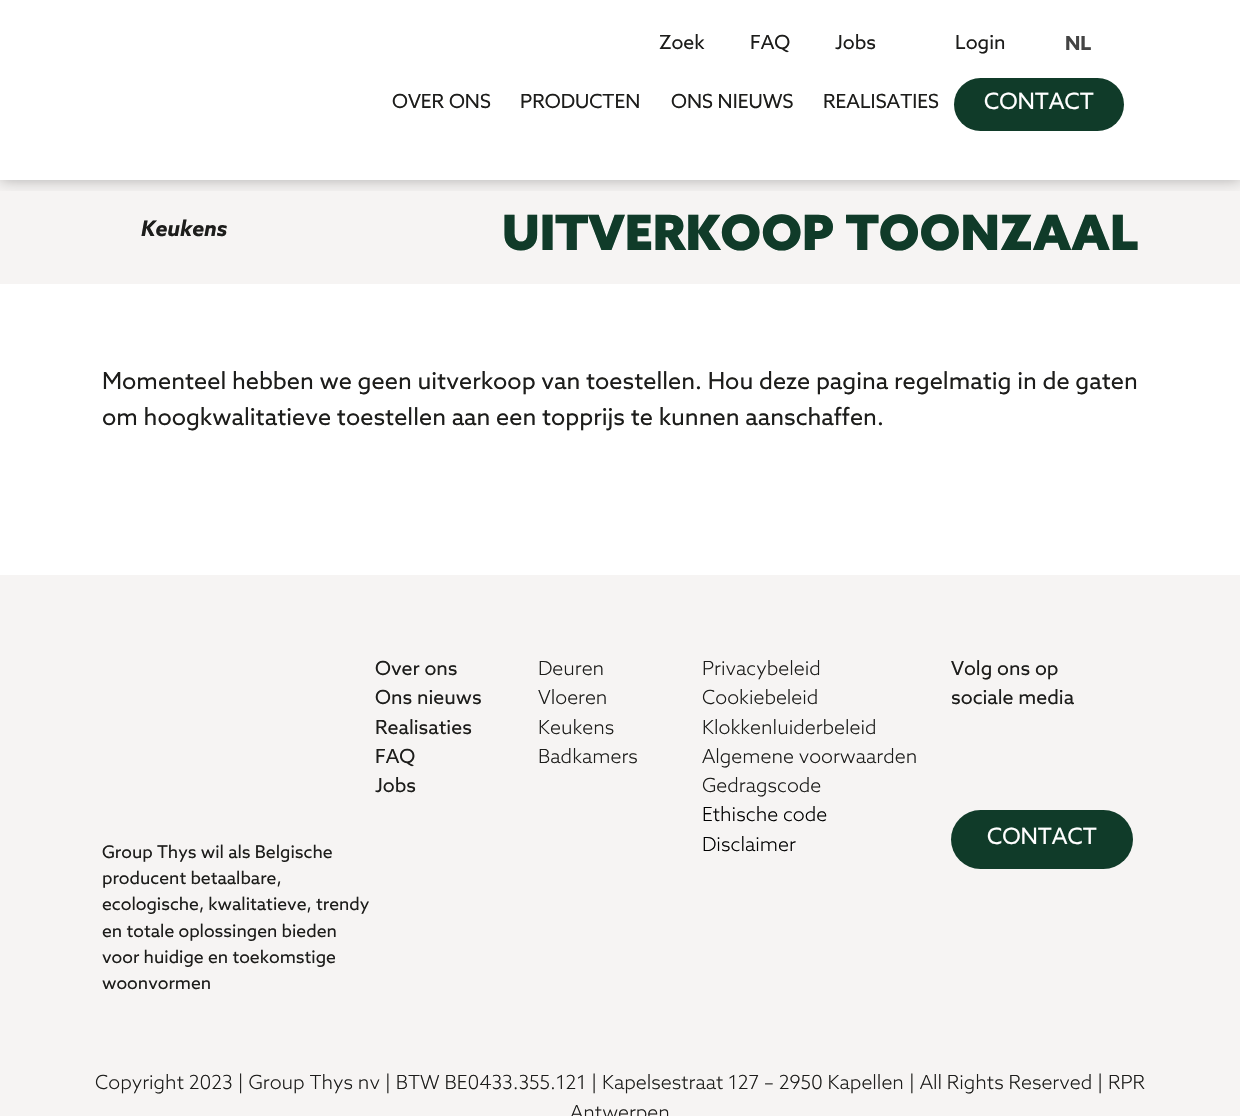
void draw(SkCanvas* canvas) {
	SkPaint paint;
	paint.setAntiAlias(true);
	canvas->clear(0xffffffff);
	paint.setColor(0xfff6f4f3);
	canvas->drawRect(SkRect::MakeXYWH(0, 180, 1240, 104), paint);
	canvas->save();
	canvas->clipRect(SkRect::MakeXYWH(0, 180, 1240, 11));
	paint.setColor(0x4a000000);
	paint.setMaskFilter(SkMaskFilter::MakeBlur(kNormal_SkBlurStyle, 7.5));
	canvas->drawRect(SkRect::MakeXYWH(0, 0, 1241, 180), paint);
	paint.setMaskFilter(nullptr);
	canvas->restore();
	SkFont f1(fontMgr->matchFamilyStyle("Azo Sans", SkFontStyle::Normal()), 19.5);
	f1.setSubpixel(true);
	paint.setColor(0xff1d1d1b);
	canvas->drawString("Zoek", 659, 49, f1, paint);
	canvas->drawString("FAQ", 750, 49, f1, paint);
	canvas->drawString("Jobs", 835, 49, f1, paint);
	canvas->drawString("Login", 955, 49, f1, paint);
	SkFont f2(fontMgr->matchFamilyStyle("Azo Sans", SkFontStyle::Bold()), 19.5);
	f2.setSubpixel(true);
	paint.setColor(0xff444444);
	canvas->drawString("NL", 1065, 50, f2, paint);
	paint.setColor(0xff1d1d1b);
	canvas->drawString("OVER ONS", 392, 108, f1, paint);
	canvas->drawString("PRODUCTEN", 520, 108, f1, paint);
	canvas->drawString("ONS NIEUWS", 671, 108, f1, paint);
	canvas->drawString("REALISATIES", 823, 108, f1, paint);
	paint.setColor(0xff103b29);
	canvas->drawRoundRect(SkRect::MakeXYWH(954, 78, 170, 53), 26.5, 26.5, paint);
	SkFont f3(fontMgr->matchFamilyStyle("Azo Sans", SkFontStyle::Normal()), 22.5);
	f3.setSubpixel(true);
	paint.setColor(0xffffffff);
	canvas->drawString("CONTACT", 984, 109, f3, paint);
	SkFont f4(fontMgr->matchFamilyStyle("Azo Sans", SkFontStyle::BoldItalic()), 21.5);
	f4.setSubpixel(true);
	paint.setColor(0xff1d1d1b);
	canvas->drawString("Keukens", 141, 236, f4, paint);
	SkFont f5(fontMgr->matchFamilyStyle("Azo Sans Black", SkFontStyle(900, SkFontStyle::kNormal_Width, SkFontStyle::kUpright_Slant)), 48.75);
	f5.setSubpixel(true);
	paint.setColor(0xff103b29);
	canvas->drawString("UITVERKOOP TOONZAAL", 502, 250, f5, paint);
	SkFont f6(fontMgr->matchFamilyStyle("Azo Sans", SkFontStyle::Normal()), 23.4);
	f6.setSubpixel(true);
	paint.setColor(0xff1d1d1b);
	canvas->drawString("Momenteel hebben we geen uitverkoop van toestellen. Hou deze pagina regelmatig in de gaten", 102, 389, f6, paint);
	canvas->drawString("om hoogkwalitatieve toestellen aan een topprijs te kunnen aanschaffen.", 102, 425, f6, paint);
	paint.setColor(0xfff6f4f3);
	canvas->drawRect(SkRect::MakeXYWH(0, 575, 1240, 541), paint);
	paint.setColor(0xff1d1d1b);
	canvas->drawString("Over ons", 375, 675, f1, paint);
	canvas->drawString("Ons nieuws", 375, 704, f1, paint);
	canvas->drawString("Realisaties", 375, 734, f1, paint);
	canvas->drawString("FAQ", 375, 763, f1, paint);
	canvas->drawString("Jobs", 375, 792, f1, paint);
	SkFont f7(fontMgr->matchFamilyStyle("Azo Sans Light", SkFontStyle(300, SkFontStyle::kNormal_Width, SkFontStyle::kUpright_Slant)), 19.5);
	f7.setSubpixel(true);
	canvas->drawString("Deuren", 538, 675, f7, paint);
	canvas->drawString("Vloeren", 538, 704, f7, paint);
	canvas->drawString("Keukens", 538, 734, f7, paint);
	canvas->drawString("Badkamers", 538, 763, f7, paint);
	canvas->drawString("Privacybeleid", 702, 675, f7, paint);
	canvas->drawString("Cookiebeleid", 702, 704, f7, paint);
	canvas->drawString("Klokkenluiderbeleid", 702, 734, f7, paint);
	canvas->drawString("Algemene voorwaarden", 702, 763, f7, paint);
	canvas->drawString("Gedragscode", 702, 792, f7, paint);
	paint.setColor(0xff000000);
	canvas->drawString("Ethische code", 702, 821, f7, paint);
	canvas->drawString("Disclaimer", 702, 851, f7, paint);
	paint.setColor(0xff1d1d1b);
	canvas->drawString("Volg ons op", 951, 675, f1, paint);
	canvas->drawString("sociale media", 951, 704, f1, paint);
	paint.setColor(0xff103b29);
	canvas->drawRoundRect(SkRect::MakeXYWH(951, 810, 182, 59), 29.5, 29.5, paint);
	paint.setColor(0xffffffff);
	canvas->drawString("CONTACT", 987, 844, f3, paint);
	SkFont f8(fontMgr->matchFamilyStyle("Azo Sans", SkFontStyle::Normal()), 17.5);
	f8.setSubpixel(true);
	paint.setColor(0xff1d1d1b);
	canvas->drawString("Group Thys wil als Belgische", 102, 858, f8, paint);
	canvas->drawString("producent betaalbare,", 102, 884, f8, paint);
	canvas->drawString("ecologische, kwalitatieve, trendy", 102, 910, f8, paint);
	canvas->drawString("en totale oplossingen bieden", 102, 937, f8, paint);
	canvas->drawString("voor huidige en toekomstige", 102, 963, f8, paint);
	canvas->drawString("woonvormen", 102, 989, f8, paint);
	canvas->drawString("Copyright 2023 | Group Thys nv | BTW BE0433.355.121 | Kapelsestraat 127 – 2950 Kapellen | All Rights Reserved | RPR", 95, 1089, f7, paint);
	canvas->drawString("Antwerpen", 570, 1119, f7, paint);
}
